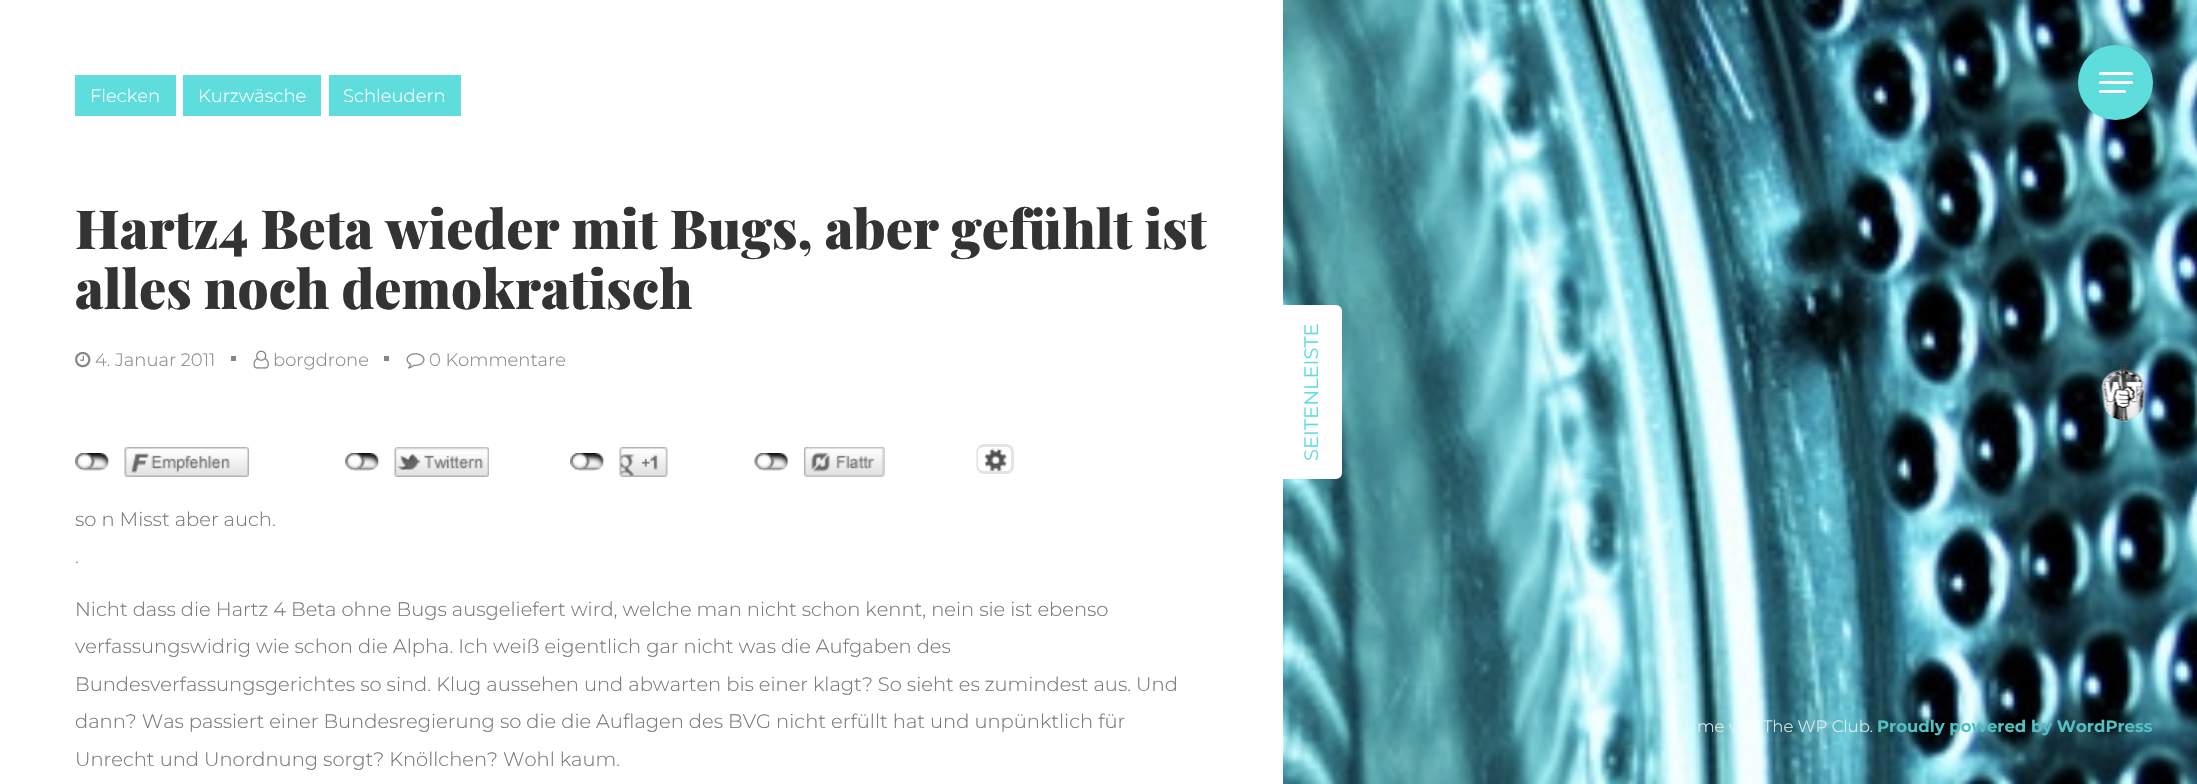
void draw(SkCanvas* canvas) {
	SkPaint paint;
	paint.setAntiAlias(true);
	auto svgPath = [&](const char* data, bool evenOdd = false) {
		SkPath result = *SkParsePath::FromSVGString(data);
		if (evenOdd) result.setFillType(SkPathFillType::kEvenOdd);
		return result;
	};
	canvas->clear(0xffffffff);
	canvas->drawImageRect(SkImages::DeferredFromEncodedData(SkData::MakeFromFileName("img12.png")), SkRect::MakeXYWH(1283, 0, 914, 784), SkSamplingOptions());
	paint.setColor(0xff5fdddd);
	canvas->drawCircle(2115.5, 82.5, 37.5, paint);
	paint.setColor(0xffffffff);
	canvas->drawRoundRect(SkRect::MakeXYWH(2099, 72, 34, 3), 1.5, 1.5, paint);
	canvas->drawRoundRect(SkRect::MakeXYWH(2099, 81, 34, 3), 1.5, 1.5, paint);
	canvas->drawRoundRect(SkRect::MakeXYWH(2099, 90, 27, 3), 1.5, 1.5, paint);
	paint.setColor(0xff5fdddd);
	canvas->drawRect(SkRect::MakeXYWH(75, 75, 101, 41), paint);
	SkFont f1(fontMgr->matchFamilyStyle("Montserrat", SkFontStyle(300, SkFontStyle::kNormal_Width, SkFontStyle::kUpright_Slant)), 18);
	f1.setSubpixel(true);
	paint.setColor(0xffffffff);
	canvas->drawString("Flecken", 90, 102, f1, paint);
	paint.setColor(0xff5fdddd);
	canvas->drawRect(SkRect::MakeXYWH(183, 75, 138, 41), paint);
	paint.setColor(0xffffffff);
	canvas->drawString("Kurzwäsche", 198, 102, f1, paint);
	paint.setColor(0xff5fdddd);
	canvas->drawRect(SkRect::MakeXYWH(329, 75, 132, 41), paint);
	paint.setColor(0xffffffff);
	canvas->drawString("Schleudern", 343, 102, f1, paint);
	SkFont f2(fontMgr->matchFamilyStyle("Playfair Display", SkFontStyle(900, SkFontStyle::kNormal_Width, SkFontStyle::kUpright_Slant)), 54);
	f2.setSubpixel(true);
	paint.setColor(0xff333333);
	canvas->drawString("Hartz4 Beta wieder mit Bugs, aber gefühlt ist", 75, 249, f2, paint);
	canvas->drawString("alles noch demokratisch", 75, 309, f2, paint);
	canvas->drawImageRect(SkImages::DeferredFromEncodedData(SkData::MakeFromFileName("img1.png")), SkRect::MakeXYWH(75, 351, 16, 17), SkSamplingOptions());
	paint.setColor(0xff878787);
	canvas->drawString("4. Januar 2011", 95, 366, f1, paint);
	canvas->drawRect(SkRect::MakeXYWH(231, 356, 5, 5), paint);
	canvas->drawImageRect(SkImages::DeferredFromEncodedData(SkData::MakeFromFileName("img2.png")), SkRect::MakeXYWH(253, 350, 16, 19), SkSamplingOptions());
	canvas->drawString("borgdrone", 273, 366, f1, paint);
	canvas->drawRect(SkRect::MakeXYWH(384, 356, 5, 5), paint);
	canvas->drawImageRect(SkImages::DeferredFromEncodedData(SkData::MakeFromFileName("img3.png")), SkRect::MakeXYWH(406, 353, 19, 16), SkSamplingOptions());
	canvas->drawString("0 Kommentare", 429, 366, f1, paint);
	canvas->drawImageRect(SkImages::DeferredFromEncodedData(SkData::MakeFromFileName("img4.png")), SkRect::MakeXYWH(75, 453, 35, 18), SkSamplingOptions());
	canvas->drawImageRect(SkImages::DeferredFromEncodedData(SkData::MakeFromFileName("img5.png")), SkRect::MakeXYWH(124, 447, 125, 30), SkSamplingOptions());
	canvas->drawImageRect(SkImages::DeferredFromEncodedData(SkData::MakeFromFileName("img6.png")), SkRect::MakeXYWH(345, 453, 35, 18), SkSamplingOptions());
	canvas->drawImageRect(SkImages::DeferredFromEncodedData(SkData::MakeFromFileName("img7.png")), SkRect::MakeXYWH(394, 447, 95, 30), SkSamplingOptions());
	canvas->drawImageRect(SkImages::DeferredFromEncodedData(SkData::MakeFromFileName("img6.png")), SkRect::MakeXYWH(570, 453, 35, 18), SkSamplingOptions());
	canvas->drawImageRect(SkImages::DeferredFromEncodedData(SkData::MakeFromFileName("img8.png")), SkRect::MakeXYWH(619, 447, 49, 30), SkSamplingOptions());
	canvas->drawImageRect(SkImages::DeferredFromEncodedData(SkData::MakeFromFileName("img9.png")), SkRect::MakeXYWH(754, 453, 35, 18), SkSamplingOptions());
	canvas->drawImageRect(SkImages::DeferredFromEncodedData(SkData::MakeFromFileName("img10.png")), SkRect::MakeXYWH(804, 447, 81, 30), SkSamplingOptions());
	canvas->drawImageRect(SkImages::DeferredFromEncodedData(SkData::MakeFromFileName("img11.png")), SkRect::MakeXYWH(984, 448, 23, 23), SkSamplingOptions());
	paint.setColor(0xffe7e3e3);
	canvas->drawPath(svgPath("M984 444C981.5 444 979.5 445 978 447L979 449C980 448 982 447 984 447H1006.5C1008 447 1009 447.5 1009.5 448.5L1012 446C1010.5 445 1008.5 444 1006.5 444Z"), paint);
	canvas->drawPath(svgPath("M1014 466.5V451.5C1014 449.5 1013 447.5 1012 446L1009.5 448.5C1012 450.5 1011 456 1011 459C1011 462 1012 467.5 1009.5 469.5L1012 472C1013 470.5 1014 468.5 1014 466.5Z"), paint);
	canvas->drawPath(svgPath("M984 474H1006.5C1008.5 474 1010.5 473 1012 472L1009.5 469.5C1009 470.5 1008 471 1006.5 471H984C982 471 980 470 979 469L978 471C979.5 473 981.5 474 984 474Z"), paint);
	paint.setColor(0xffdddddd);
	canvas->drawPath(svgPath("M976.5 451.5V466.5C976.5 468 977 469.5 978 471L979 469C977 467 978 461.5 978 459C978 456.5 977 451 979 449L978 447C977 448.5 976.5 450 976.5 451.5Z"), paint);
	SkFont f3(fontMgr->matchFamilyStyle("Montserrat", SkFontStyle(300, SkFontStyle::kNormal_Width, SkFontStyle::kUpright_Slant)), 19.5);
	f3.setSubpixel(true);
	paint.setColor(0xff767676);
	canvas->drawString("so n Misst aber auch.", 75, 526, f3, paint);
	canvas->drawString(".", 75, 563, f3, paint);
	canvas->drawString("Nicht dass die Hartz 4 Beta ohne Bugs ausgeliefert wird, welche man nicht schon kennt, nein sie ist ebenso", 75, 616, f3, paint);
	canvas->drawString("verfassungswidrig wie schon die Alpha. Ich weiß eigentlich gar nicht was die Aufgaben des", 75, 653, f3, paint);
	canvas->drawString("Bundesverfassungsgerichtes so sind. Klug aussehen und abwarten bis einer klagt? So sieht es zumindest aus. Und", 75, 691, f3, paint);
	canvas->drawString("dann? Was passiert einer Bundesregierung so die die Auflagen des BVG nicht erfüllt hat und unpünktlich für", 75, 728, f3, paint);
	canvas->drawString("Unrecht und Unordnung sorgt? Knöllchen? Wohl kaum.", 75, 766, f3, paint);
	paint.setColor(0xffffffff);
	canvas->drawPath(svgPath("M1282 479V305H1336C1339 305 1342 308 1342 311V473C1342 476 1339 479 1336 479Z"), paint);
	SkFont f4(fontMgr->matchFamilyStyle("Montserrat", SkFontStyle::Normal()), 19.5);
	f4.setSubpixel(true);
	paint.setColor(0xff5fdddd);
	canvas->save();
	canvas->rotate(-90, 1318, 461);
	canvas->drawString("SEITENLEISTE", 1318, 461, f4, paint);
	canvas->restore();
	canvas->drawImageRect(SkImages::DeferredFromEncodedData(SkData::MakeFromFileName("img13.png")), SkRect::MakeXYWH(2101, 364, 44, 58), SkSamplingOptions());
	SkFont f5(fontMgr->matchFamilyStyle("Montserrat", SkFontStyle(300, SkFontStyle::kNormal_Width, SkFontStyle::kUpright_Slant)), 16.5);
	f5.setSubpixel(true);
	paint.setColor(0xffe5f1f2);
	canvas->drawString("me v", 1697, 732, f5, paint);
	canvas->drawString("The WP Club.", 1763, 732, f5, paint);
	SkFont f6(fontMgr->matchFamilyStyle("Montserrat", SkFontStyle::Bold()), 16.5);
	f6.setSubpixel(true);
	paint.setColor(0xff54bfc1);
	canvas->drawString("Proudly powered by WordPress", 1877, 732, f6, paint);
}
